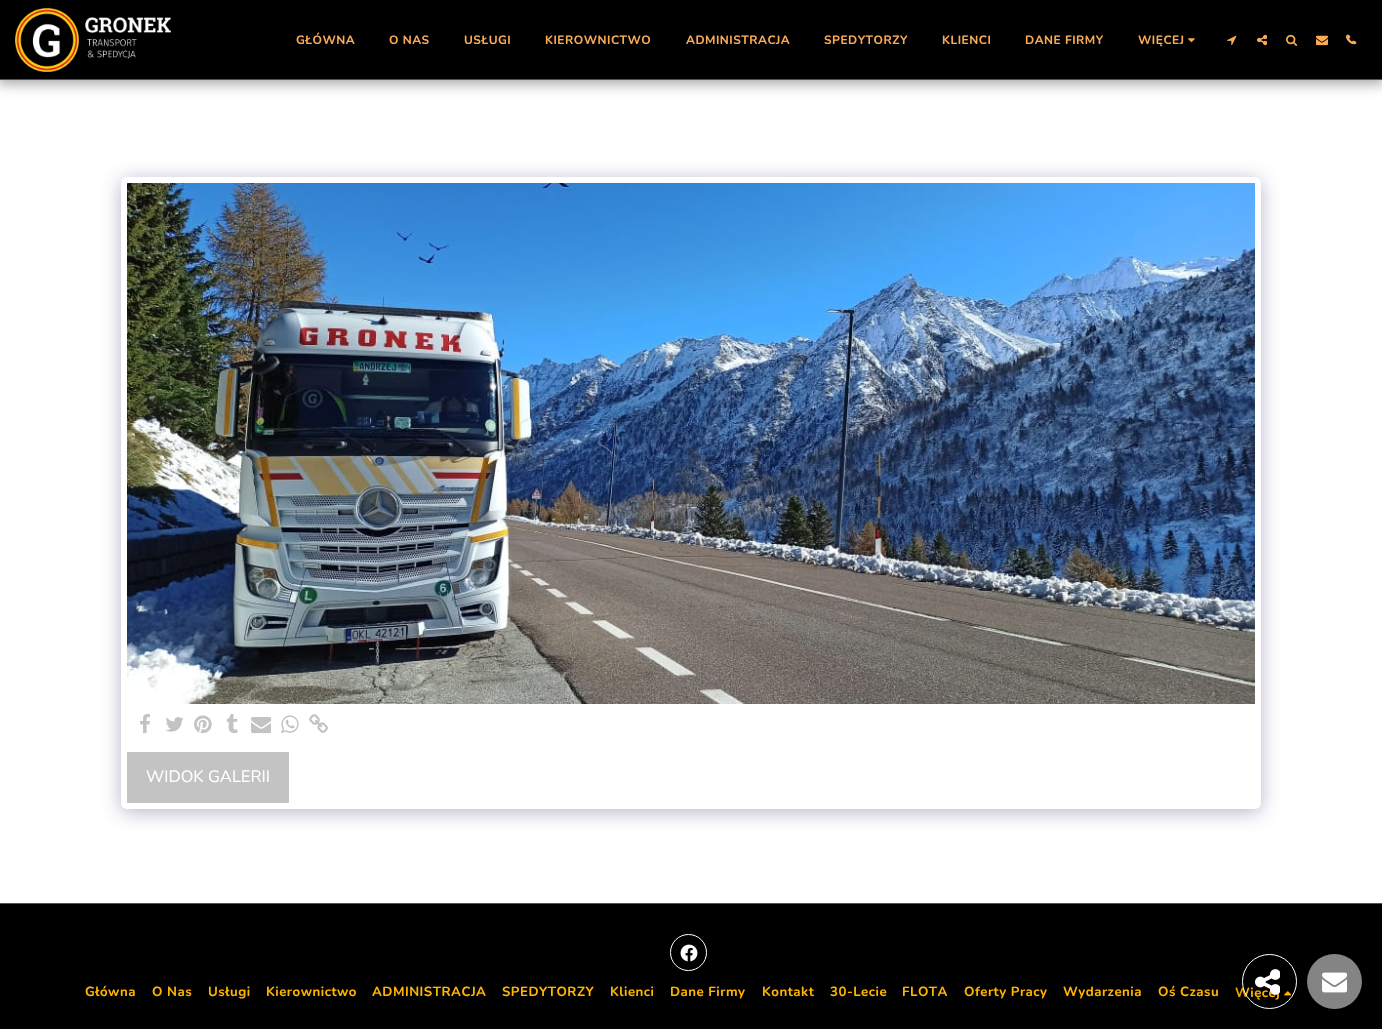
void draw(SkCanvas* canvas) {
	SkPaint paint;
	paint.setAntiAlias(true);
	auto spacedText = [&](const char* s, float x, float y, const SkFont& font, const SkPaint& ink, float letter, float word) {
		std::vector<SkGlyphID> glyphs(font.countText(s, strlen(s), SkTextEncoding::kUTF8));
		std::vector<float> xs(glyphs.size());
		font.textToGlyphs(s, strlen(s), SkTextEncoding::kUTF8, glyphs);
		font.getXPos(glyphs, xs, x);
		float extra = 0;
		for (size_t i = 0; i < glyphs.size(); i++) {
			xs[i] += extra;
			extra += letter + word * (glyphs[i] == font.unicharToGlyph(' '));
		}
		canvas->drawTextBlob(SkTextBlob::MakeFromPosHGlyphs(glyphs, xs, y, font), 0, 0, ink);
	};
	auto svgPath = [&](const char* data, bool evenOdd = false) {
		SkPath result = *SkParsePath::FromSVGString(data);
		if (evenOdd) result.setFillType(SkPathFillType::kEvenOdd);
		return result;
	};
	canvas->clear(0xffffffff);
	paint.setColor(0x59000000);
	paint.setMaskFilter(SkMaskFilter::MakeBlur(kNormal_SkBlurStyle, 6));
	canvas->drawRect(SkRect::MakeXYWH(-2, 0, 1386, 84), paint);
	paint.setMaskFilter(nullptr);
	paint.setColor(0xff000000);
	canvas->drawRect(SkRect::MakeXYWH(0, 0, 1382, 79), paint);
	paint.setColor(0xffc62020);
	canvas->drawRect(SkRect::MakeXYWH(0, 79, 1382, 1), paint);
	canvas->drawImageRect(SkImages::DeferredFromEncodedData(SkData::MakeFromFileName("img1.png")), SkRect::MakeXYWH(15, 8, 156, 64), SkSamplingOptions());
	SkFont f1(fontMgr->matchFamilyStyle("Nunito", SkFontStyle::Bold()), 12);
	f1.setSubpixel(true);
	paint.setColor(0xfffcab55);
	spacedText("GŁÓWNA", 296, 44, f1, paint, 0.5, 0);
	spacedText("O NAS", 389, 44, f1, paint, 0.5, 0);
	spacedText("USŁUGI", 464, 44, f1, paint, 0.5, 0);
	spacedText("KIEROWNICTWO", 545, 44, f1, paint, 0.5, 0);
	spacedText("ADMINISTRACJA", 686, 44, f1, paint, 0.5, 0);
	spacedText("SPEDYTORZY", 824, 44, f1, paint, 0.5, 0);
	spacedText("KLIENCI", 942, 44, f1, paint, 0.5, 0);
	spacedText("DANE FIRMY", 1025, 44, f1, paint, 0.5, 0);
	spacedText("WIĘCEJ", 1138, 44, f1, paint, 0.5, 0);
	canvas->drawImageRect(SkImages::DeferredFromEncodedData(SkData::MakeFromFileName("img2.png")), SkRect::MakeXYWH(1188, 38, 7, 5), SkSamplingOptions());
	canvas->drawImageRect(SkImages::DeferredFromEncodedData(SkData::MakeFromFileName("img3.png")), SkRect::MakeXYWH(1227, 35, 10, 11), SkSamplingOptions());
	canvas->drawImageRect(SkImages::DeferredFromEncodedData(SkData::MakeFromFileName("img4.png")), SkRect::MakeXYWH(1257, 34, 10, 12), SkSamplingOptions());
	canvas->drawImageRect(SkImages::DeferredFromEncodedData(SkData::MakeFromFileName("img5.png")), SkRect::MakeXYWH(1286, 34, 12, 12), SkSamplingOptions());
	canvas->drawImageRect(SkImages::DeferredFromEncodedData(SkData::MakeFromFileName("img6.png")), SkRect::MakeXYWH(1316, 35, 12, 11), SkSamplingOptions());
	canvas->drawImageRect(SkImages::DeferredFromEncodedData(SkData::MakeFromFileName("img7.png")), SkRect::MakeXYWH(1347, 34, 10, 11), SkSamplingOptions());
	canvas->drawImageRect(SkImages::DeferredFromEncodedData(SkData::MakeFromFileName("img8.png")), SkRect::MakeXYWH(1346, 34, 10, 10), SkSamplingOptions());
	paint.setColor(0x664d3f7a);
	paint.setMaskFilter(SkMaskFilter::MakeBlur(kNormal_SkBlurStyle, 10));
	canvas->drawRoundRect(SkRect::MakeXYWH(121, 180, 1140, 632), 6, 6, paint);
	paint.setMaskFilter(nullptr);
	paint.setColor(0xffffffff);
	canvas->drawRoundRect(SkRect::MakeXYWH(121, 177, 1140, 632), 6, 6, paint);
	canvas->drawImageRect(SkImages::DeferredFromEncodedData(SkData::MakeFromFileName("img9.png")), SkRect::MakeXYWH(127, 183, 1128, 521), SkSamplingOptions());
	canvas->drawImageRect(SkImages::DeferredFromEncodedData(SkData::MakeFromFileName("img10.png")), SkRect::MakeXYWH(140, 714, 10, 20), SkSamplingOptions());
	canvas->drawImageRect(SkImages::DeferredFromEncodedData(SkData::MakeFromFileName("img11.png")), SkRect::MakeXYWH(165, 717, 19, 15), SkSamplingOptions());
	canvas->drawImageRect(SkImages::DeferredFromEncodedData(SkData::MakeFromFileName("img12.png")), SkRect::MakeXYWH(194, 715, 18, 19), SkSamplingOptions());
	canvas->drawImageRect(SkImages::DeferredFromEncodedData(SkData::MakeFromFileName("img13.png")), SkRect::MakeXYWH(226, 714, 12, 20), SkSamplingOptions());
	canvas->drawImageRect(SkImages::DeferredFromEncodedData(SkData::MakeFromFileName("img14.png")), SkRect::MakeXYWH(251, 717, 20, 17), SkSamplingOptions());
	canvas->drawImageRect(SkImages::DeferredFromEncodedData(SkData::MakeFromFileName("img15.png")), SkRect::MakeXYWH(281, 715, 18, 18), SkSamplingOptions());
	canvas->drawImageRect(SkImages::DeferredFromEncodedData(SkData::MakeFromFileName("img16.png")), SkRect::MakeXYWH(309, 714, 19, 19), SkSamplingOptions());
	paint.setColor(0xffc3c3c3);
	canvas->drawRect(SkRect::MakeXYWH(127, 752, 162, 51), paint);
	SkFont f2(fontMgr->matchFamilyStyle("Nunito", SkFontStyle::Normal()), 16.5);
	f2.setSubpixel(true);
	paint.setColor(0xffffffff);
	canvas->drawString("WIDOK GALERII", 146, 782, f2, paint);
	paint.setColor(0xffc62020);
	canvas->drawRect(SkRect::MakeXYWH(0, 903, 1382, 1), paint);
	paint.setColor(0xff000000);
	canvas->drawRect(SkRect::MakeXYWH(0, 904, 1382, 125), paint);
	paint.setStroke(true);
	paint.setStrokeWidth(1);
	paint.setColor(0xffffffff);
	canvas->drawCircle(688.5, 952.5, 18, paint);
	canvas->drawImageRect(SkImages::DeferredFromEncodedData(SkData::MakeFromFileName("img17.png")), SkRect::MakeXYWH(680, 944, 18, 18), SkSamplingOptions());
	SkFont f3(fontMgr->matchFamilyStyle("Nunito", SkFontStyle::Bold()), 13.25);
	f3.setSubpixel(true);
	paint.setStroke(false);
	paint.setColor(0xffffb400);
	spacedText("Główna", 85, 996, f3, paint, 0.5, 0);
	spacedText("O Nas", 152, 996, f3, paint, 0.5, 0);
	spacedText("Usługi", 208, 996, f3, paint, 0.5, 0);
	spacedText("Kierownictwo", 266, 996, f3, paint, 0.5, 0);
	spacedText("ADMINISTRACJA", 372, 996, f3, paint, 0.5, 0);
	spacedText("SPEDYTORZY", 502, 996, f3, paint, 0.5, 0);
	spacedText("Klienci", 610, 996, f3, paint, 0.5, 0);
	spacedText("Dane Firmy", 670, 996, f3, paint, 0.5, 0);
	spacedText("Kontakt", 762, 996, f3, paint, 0.5, 0);
	spacedText("30-Lecie", 830, 996, f3, paint, 0.5, 0);
	spacedText("FLOTA", 902, 996, f3, paint, 0.5, 0);
	spacedText("Oferty Pracy", 964, 996, f3, paint, 0.5, 0);
	spacedText("Wydarzenia", 1063, 996, f3, paint, 0.5, 0);
	spacedText("Oś Czasu", 1158, 996, f3, paint, 0.5, 0);
	spacedText("Więcej", 1235, 997, f3, paint, 0.5, 0);
	canvas->drawImageRect(SkImages::DeferredFromEncodedData(SkData::MakeFromFileName("img18.png")), SkRect::MakeXYWH(1284, 991, 7, 5), SkSamplingOptions());
	paint.setColor(0xff848484);
	canvas->drawCircle(1334.5, 981.5, 27.5, paint);
	canvas->save();
	canvas->clipPath(svgPath("M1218 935H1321V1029H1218ZM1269.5 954C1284.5 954 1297 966.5 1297 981.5C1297 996.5 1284.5 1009 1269.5 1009C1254.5 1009 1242 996.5 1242 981.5C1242 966.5 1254.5 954 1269.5 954Z", true), true);
	paint.setColor(0x59000000);
	paint.setMaskFilter(SkMaskFilter::MakeBlur(kNormal_SkBlurStyle, 7.5));
	canvas->drawRoundRect(SkRect::MakeXYWH(1242, 959, 55, 55), 27.5, 27.5, paint);
	paint.setMaskFilter(nullptr);
	canvas->restore();
	paint.setStroke(true);
	paint.setColor(0xffffffff);
	canvas->drawCircle(1269.5, 981.5, 27, paint);
	canvas->drawImageRect(SkImages::DeferredFromEncodedData(SkData::MakeFromFileName("img19.png")), SkRect::MakeXYWH(1255, 969, 25, 26), SkSamplingOptions());
	canvas->drawImageRect(SkImages::DeferredFromEncodedData(SkData::MakeFromFileName("img20.png")), SkRect::MakeXYWH(1322, 972, 25, 21), SkSamplingOptions());
}
